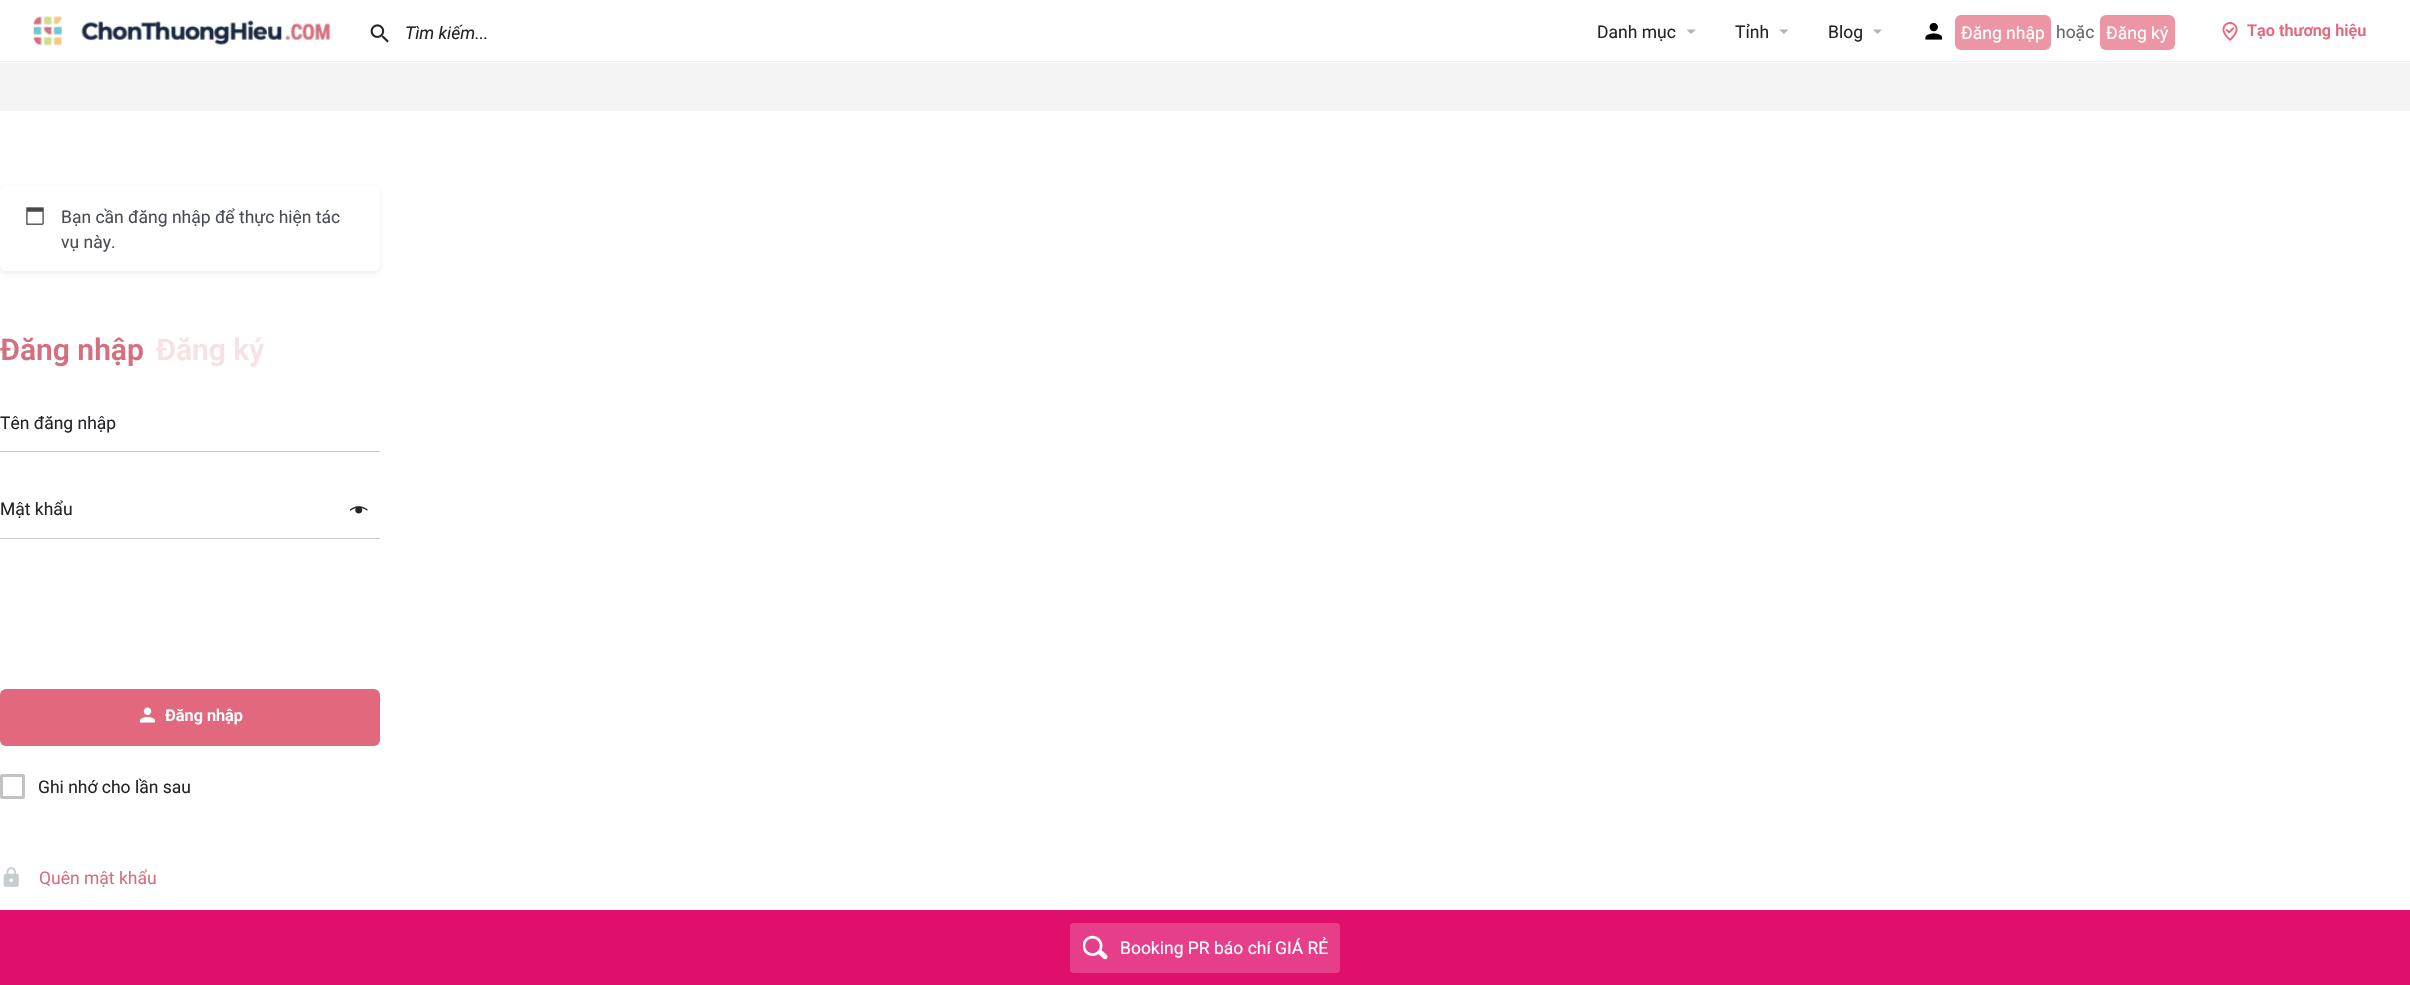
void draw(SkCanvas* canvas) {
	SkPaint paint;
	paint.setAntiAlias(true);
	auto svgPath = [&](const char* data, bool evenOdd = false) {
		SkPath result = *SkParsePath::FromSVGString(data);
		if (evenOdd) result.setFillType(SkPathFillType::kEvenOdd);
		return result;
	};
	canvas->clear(0xfff4f4f4);
	paint.setColor(0xffffffff);
	canvas->drawRect(SkRect::MakeXYWH(0, 0, 2410, 63), paint);
	canvas->drawImageRect(SkImages::DeferredFromEncodedData(SkData::MakeFromFileName("img1.png")), SkRect::MakeXYWH(33, 16, 298, 30), SkSamplingOptions());
	canvas->drawImageRect(SkImages::DeferredFromEncodedData(SkData::MakeFromFileName("img2.png")), SkRect::MakeXYWH(370, 24, 19, 19), SkSamplingOptions());
	SkFont f1(fontMgr->matchFamilyStyle("Roboto", SkFontStyle::Italic()), 17.5);
	f1.setSubpixel(true);
	paint.setColor(0xff242429);
	canvas->drawString("Tìm kiếm...", 405, 39, f1, paint);
	SkFont f2(fontMgr->matchFamilyStyle("Roboto", SkFontStyle::Normal()), 17.5);
	f2.setSubpixel(true);
	canvas->drawString("Danh mục", 1597, 38, f2, paint);
	paint.setColor(0xffb3b3b3);
	canvas->drawPath(svgPath("M1686.5 29.5H1696L1691 34Z"), paint);
	paint.setColor(0xff242429);
	canvas->drawString("Tỉnh", 1735, 38, f2, paint);
	paint.setColor(0xffb3b3b3);
	canvas->drawPath(svgPath("M1779 29.5H1788.5L1784 34Z"), paint);
	paint.setColor(0xff242429);
	canvas->drawString("Blog", 1828, 38, f2, paint);
	paint.setColor(0xffb3b3b3);
	canvas->drawPath(svgPath("M1873 29.5H1882L1877.5 34Z"), paint);
	canvas->drawImageRect(SkImages::DeferredFromEncodedData(SkData::MakeFromFileName("img3.png")), SkRect::MakeXYWH(1925, 22, 18, 18), SkSamplingOptions());
	paint.setColor(0xffeb95a5);
	canvas->drawRoundRect(SkRect::MakeXYWH(1955, 15, 96, 35), 6, 6, paint);
	paint.setColor(0xffffffff);
	canvas->drawString("Đăng nhập", 1961, 39, f2, paint);
	paint.setColor(0xff666669);
	canvas->drawString("hoặc", 2056, 38, f2, paint);
	paint.setColor(0xffeb95a5);
	canvas->drawRoundRect(SkRect::MakeXYWH(2100, 15, 75, 35), 6, 6, paint);
	paint.setColor(0xffffffff);
	canvas->drawString("Đăng ký", 2106, 39, f2, paint);
	canvas->drawImageRect(SkImages::DeferredFromEncodedData(SkData::MakeFromFileName("img4.png")), SkRect::MakeXYWH(2222, 22, 16, 19), SkSamplingOptions());
	SkFont f3(fontMgr->matchFamilyStyle("Roboto", SkFontStyle(600, SkFontStyle::kNormal_Width, SkFontStyle::kUpright_Slant)), 16.25);
	f3.setSubpixel(true);
	paint.setColor(0xffe2687e);
	canvas->drawString("Tạo thương hiệu", 2247, 36, f3, paint);
	paint.setColor(0xfff1f1f1);
	canvas->drawRect(SkRect::MakeXYWH(0, 61, 2410, 1), paint);
	paint.setColor(0xffffffff);
	canvas->drawRect(SkRect::MakeXYWH(0, 111, 2410, 799), paint);
	paint.setColor(0x12000000);
	paint.setMaskFilter(SkMaskFilter::MakeBlur(kNormal_SkBlurStyle, 2.5));
	canvas->drawRoundRect(SkRect::MakeXYWH(0, 188, 380, 85), 6, 6, paint);
	paint.setMaskFilter(nullptr);
	paint.setColor(0xffffffff);
	canvas->drawRoundRect(SkRect::MakeXYWH(0, 186, 380, 85), 6, 6, paint);
	canvas->drawImageRect(SkImages::DeferredFromEncodedData(SkData::MakeFromFileName("img5.png")), SkRect::MakeXYWH(26, 207, 18, 18), SkSamplingOptions());
	paint.setColor(0xff4a4d54);
	canvas->drawString("Bạn cần đăng nhập để thực hiện tác", 61, 223, f2, paint);
	canvas->drawString("vụ này.", 61, 248, f2, paint);
	SkFont f4(fontMgr->matchFamilyStyle("Roboto", SkFontStyle(600, SkFontStyle::kNormal_Width, SkFontStyle::kUpright_Slant)), 30);
	f4.setSubpixel(true);
	paint.setColor(0xffd36f7f);
	canvas->drawString("Đăng nhập", 0, 360, f4, paint);
	paint.setColor(0xfff6e2e5);
	canvas->drawString("Đăng ký", 156, 360, f4, paint);
	paint.setColor(0xff242429);
	canvas->drawString("Tên đăng nhập", 0, 429, f2, paint);
	paint.setColor(0xffcccccc);
	canvas->drawRect(SkRect::MakeXYWH(0, 451, 380, 1), paint);
	paint.setColor(0xff242429);
	canvas->drawString("Mật khẩu", 0, 515, f2, paint);
	paint.setColor(0xffcccccc);
	canvas->drawRect(SkRect::MakeXYWH(0, 538, 380, 1), paint);
	canvas->drawImageRect(SkImages::DeferredFromEncodedData(SkData::MakeFromFileName("img6.png")), SkRect::MakeXYWH(350, 506, 18, 8), SkSamplingOptions());
	paint.setColor(0xffe2687e);
	canvas->drawRoundRect(SkRect::MakeXYWH(0, 689, 380, 57), 6, 6, paint);
	canvas->drawImageRect(SkImages::DeferredFromEncodedData(SkData::MakeFromFileName("img7.png")), SkRect::MakeXYWH(140, 707, 15, 16), SkSamplingOptions());
	paint.setColor(0xffffffff);
	canvas->drawString("Đăng nhập", 165, 721, f3, paint);
	paint.setStroke(true);
	paint.setStrokeWidth(3);
	paint.setColor(0xffc2c2c2);
	canvas->drawRoundRect(SkRect::MakeXYWH(1.5, 775.5, 22, 22), 1, 1, paint);
	paint.setStroke(false);
	paint.setColor(0xff242429);
	canvas->drawString("Ghi nhớ cho lần sau", 38, 793, f2, paint);
	canvas->drawImageRect(SkImages::DeferredFromEncodedData(SkData::MakeFromFileName("img8.png")), SkRect::MakeXYWH(3, 867, 16, 20), SkSamplingOptions());
	paint.setColor(0xffd36f7f);
	canvas->drawString("Quên mật khẩu", 39, 884, f2, paint);
	paint.setColor(0xffe00e6c);
	canvas->drawRect(SkRect::MakeXYWH(0, 910, 2410, 75), paint);
	paint.setColor(0xffe63e89);
	canvas->drawRoundRect(SkRect::MakeXYWH(1070, 923, 270, 50), 4, 4, paint);
	canvas->drawImageRect(SkImages::DeferredFromEncodedData(SkData::MakeFromFileName("img9.png")), SkRect::MakeXYWH(1083, 935, 25, 25), SkSamplingOptions());
	paint.setColor(0xffffffff);
	canvas->drawString("Booking PR báo chí GIÁ RẺ", 1120, 954, f2, paint);
}
